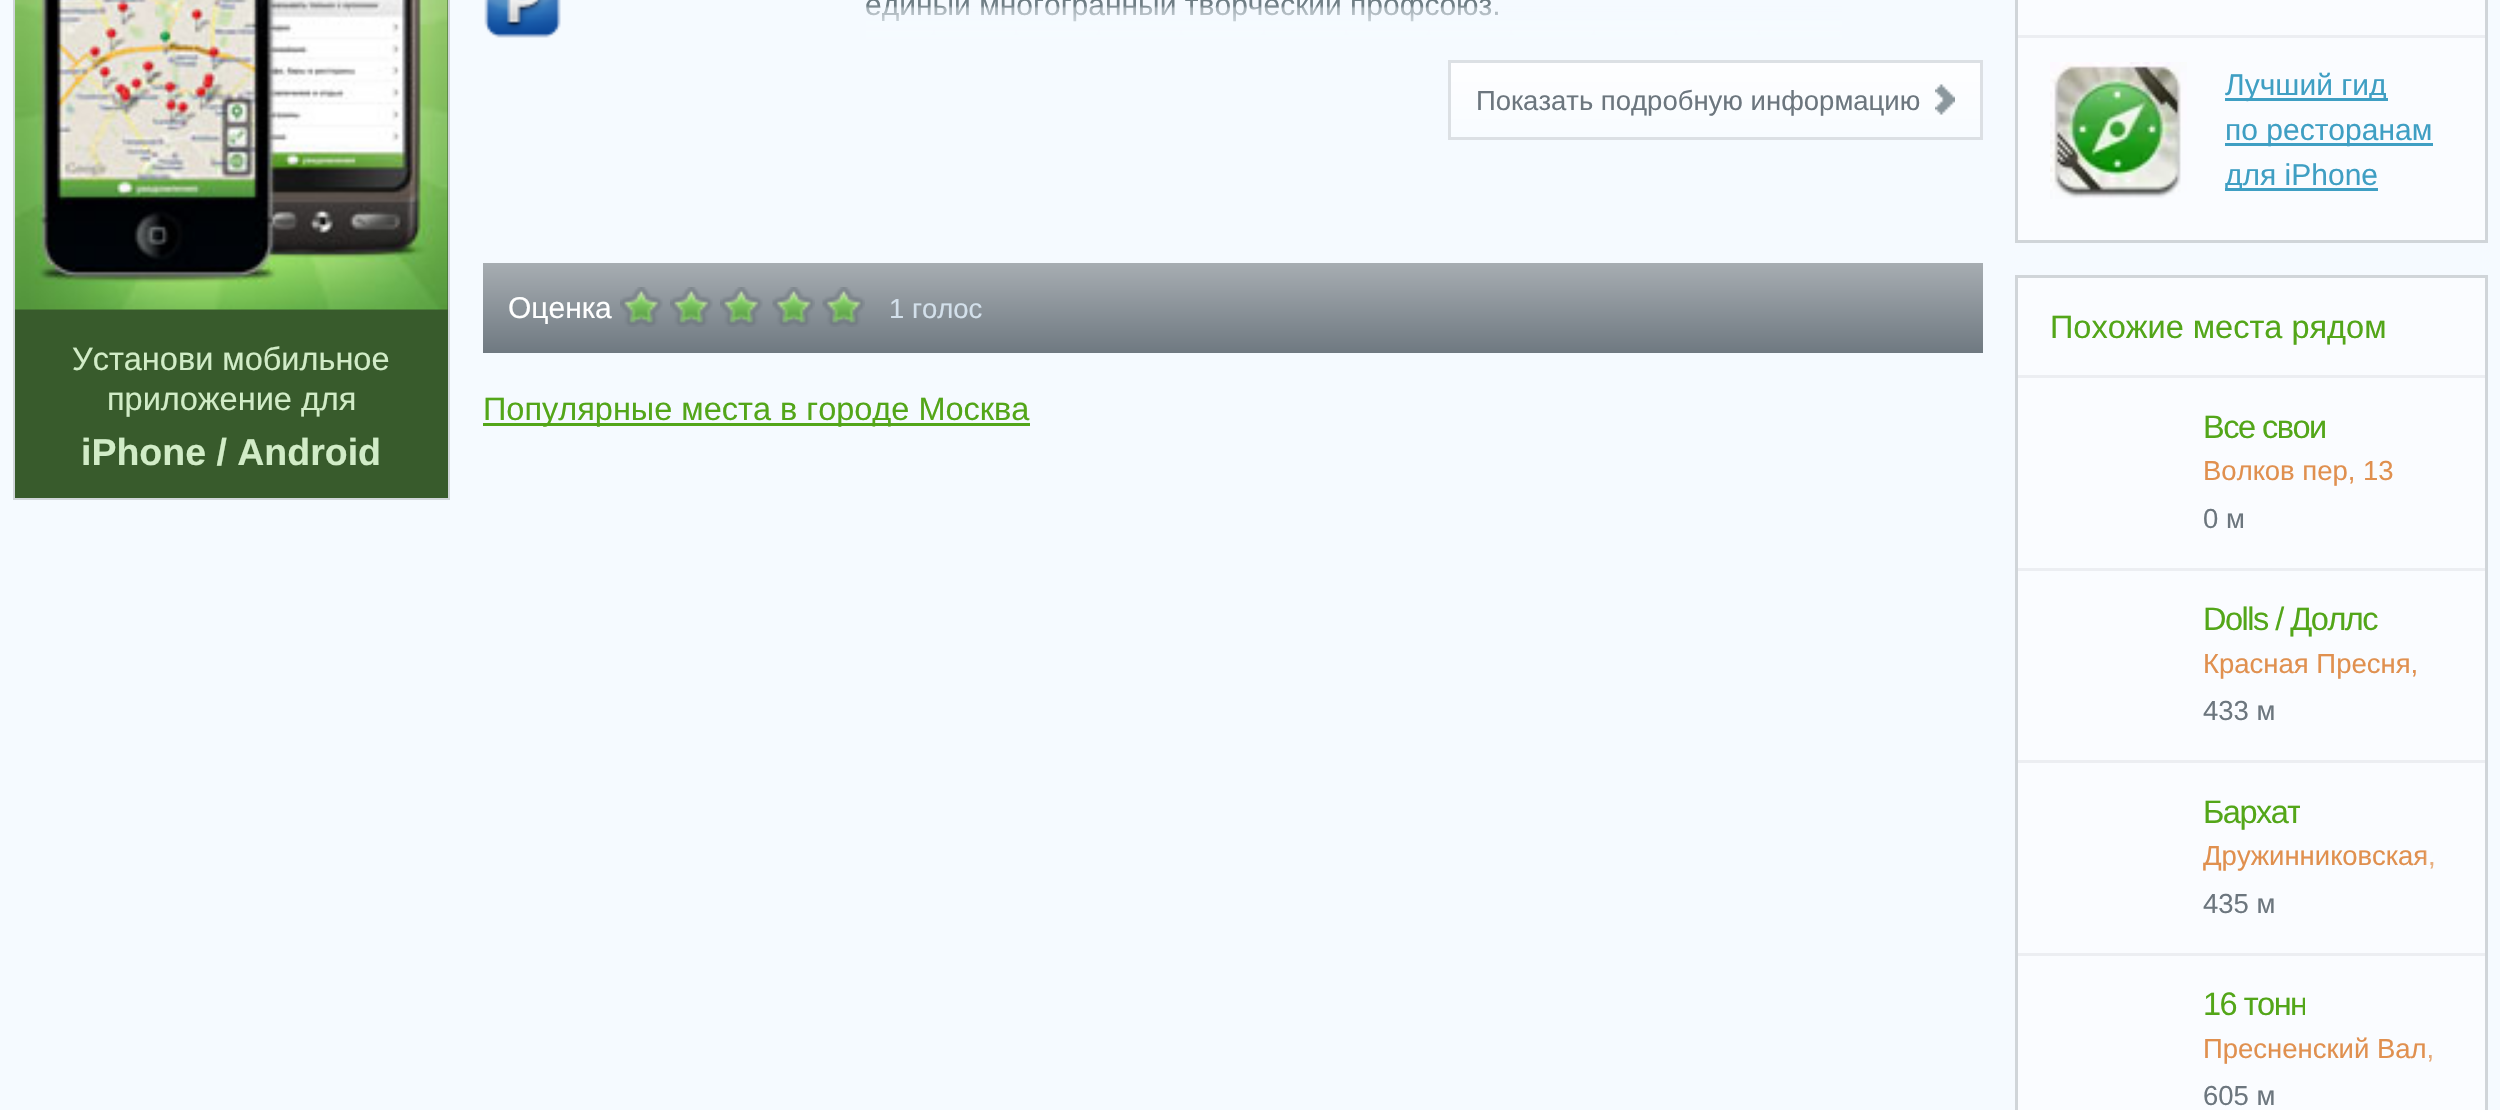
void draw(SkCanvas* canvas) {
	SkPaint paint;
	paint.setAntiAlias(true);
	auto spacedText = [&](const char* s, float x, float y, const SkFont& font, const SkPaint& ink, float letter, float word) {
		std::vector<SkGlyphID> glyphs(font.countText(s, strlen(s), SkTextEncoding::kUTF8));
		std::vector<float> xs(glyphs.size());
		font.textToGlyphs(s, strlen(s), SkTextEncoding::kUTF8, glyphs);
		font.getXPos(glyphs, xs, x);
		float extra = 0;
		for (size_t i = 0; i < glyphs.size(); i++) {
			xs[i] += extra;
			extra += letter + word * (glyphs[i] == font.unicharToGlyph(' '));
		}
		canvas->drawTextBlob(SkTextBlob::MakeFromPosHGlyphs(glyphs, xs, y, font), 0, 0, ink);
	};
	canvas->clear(0xfff5faff);
	paint.setStroke(true);
	paint.setStrokeWidth(3);
	paint.setColor(0xffd0d5d9);
	canvas->drawRect(SkRect::MakeXYWH(14.5, -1.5, 434, 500), paint);
	paint.setStroke(false);
	paint.setColor(0xff385b2c);
	canvas->drawRect(SkRect::MakeXYWH(15, 0, 433, 498), paint);
	canvas->drawImageRect(SkImages::DeferredFromEncodedData(SkData::MakeFromFileName("img1.png")), SkRect::MakeXYWH(15, 0, 433, 310), SkSamplingOptions());
	SkFont f1(fontMgr->matchFamilyStyle("Liberation Sans", SkFontStyle::Normal()), 32.5);
	f1.setSubpixel(true);
	paint.setColor(0xffd1ecc7);
	canvas->drawString("Установи мобильное", 72, 370, f1, paint);
	canvas->drawString("приложение для", 107, 410, f1, paint);
	SkFont f2(fontMgr->matchFamilyStyle("Liberation Sans", SkFontStyle::Bold()), 37.5);
	f2.setSubpixel(true);
	canvas->drawString("iPhone / Android", 81, 465, f2, paint);
	canvas->drawImageRect(SkImages::DeferredFromEncodedData(SkData::MakeFromFileName("img2.png")), SkRect::MakeXYWH(484, 0, 77, 38), SkSamplingOptions());
	SkFont f3(fontMgr->matchFamilyStyle("Liberation Sans", SkFontStyle::Normal()), 30);
	f3.setSubpixel(true);
	paint.setColor(0xff6e7d84);
	canvas->drawString("единый многогранный творческий профсоюз.", 865, 15, f3, paint);
	canvas->drawImageRect(SkImages::DeferredFromEncodedData(SkData::MakeFromFileName("img3.png")), SkRect::MakeXYWH(866, 6, 976, 37), SkSamplingOptions());
	{
		const SkColor colors[] = {0xfffefeff, 0xfff8fcff};
		const float stops[] = {0, 1};
		const SkPoint ends[] = {{1450, 63}, {1450, 138}};
		paint.setShader(SkGradientShader::MakeLinear(ends, colors, stops, 2, SkTileMode::kClamp));
		paint.setAlpha(255);
	}
	canvas->drawRect(SkRect::MakeXYWH(1451, 63, 529, 74), paint);
	paint.setStroke(true);
	paint.setShader(nullptr);
	paint.setColor(0xffdce0e4);
	canvas->drawRect(SkRect::MakeXYWH(1449.5, 61.5, 532, 77), paint);
	SkFont f4(fontMgr->matchFamilyStyle("Liberation Sans", SkFontStyle::Normal()), 27.5);
	f4.setSubpixel(true);
	paint.setStroke(false);
	paint.setColor(0xff6c767e);
	canvas->drawString("Показать подробную информацию", 1476, 110, f4, paint);
	canvas->drawImageRect(SkImages::DeferredFromEncodedData(SkData::MakeFromFileName("img4.png")), SkRect::MakeXYWH(1935, 84, 20, 31), SkSamplingOptions());
	{
		const SkColor colors[] = {0xffa7adb2, 0xff6f7981};
		const float stops[] = {0, 1};
		const SkPoint ends[] = {{483, 263}, {483, 353}};
		paint.setShader(SkGradientShader::MakeLinear(ends, colors, stops, 2, SkTileMode::kClamp));
		paint.setAlpha(255);
	}
	canvas->drawRect(SkRect::MakeXYWH(483, 263, 1500, 90), paint);
	paint.setShader(nullptr);
	paint.setColor(0xffffffff);
	canvas->drawString("Оценка", 508, 318, f3, paint);
	canvas->drawImageRect(SkImages::DeferredFromEncodedData(SkData::MakeFromFileName("img5.png")), SkRect::MakeXYWH(620, 287, 43, 40), SkSamplingOptions());
	canvas->drawImageRect(SkImages::DeferredFromEncodedData(SkData::MakeFromFileName("img6.png")), SkRect::MakeXYWH(670, 287, 43, 40), SkSamplingOptions());
	canvas->drawImageRect(SkImages::DeferredFromEncodedData(SkData::MakeFromFileName("img6.png")), SkRect::MakeXYWH(720, 287, 43, 40), SkSamplingOptions());
	canvas->drawImageRect(SkImages::DeferredFromEncodedData(SkData::MakeFromFileName("img7.png")), SkRect::MakeXYWH(772, 287, 43, 40), SkSamplingOptions());
	canvas->drawImageRect(SkImages::DeferredFromEncodedData(SkData::MakeFromFileName("img7.png")), SkRect::MakeXYWH(822, 287, 43, 40), SkSamplingOptions());
	paint.setColor(0xffd3e0eb);
	canvas->drawString("1 голос", 889, 318, f4, paint);
	paint.setColor(0xff53a619);
	canvas->drawRect(SkRect::MakeXYWH(483, 423, 547, 3), paint);
	canvas->drawString("Популярные места в городе Москва", 483, 420, f1, paint);
	paint.setColor(0xfffafcff);
	canvas->drawRect(SkRect::MakeXYWH(2016.5, -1.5, 470, 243), paint);
	paint.setStroke(true);
	paint.setColor(0xffd0d5d9);
	canvas->drawRect(SkRect::MakeXYWH(2016.5, -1.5, 470, 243), paint);
	paint.setStroke(false);
	paint.setColor(0xffeceef2);
	canvas->drawRect(SkRect::MakeXYWH(2018, 35, 467, 3), paint);
	canvas->drawImageRect(SkImages::DeferredFromEncodedData(SkData::MakeFromFileName("img8.png")), SkRect::MakeXYWH(2050, 62, 137, 137), SkSamplingOptions());
	paint.setColor(0xff3f9fc3);
	canvas->drawRect(SkRect::MakeXYWH(2225, 98, 163, 3), paint);
	canvas->drawString("Лучший гид", 2225, 95, f3, paint);
	canvas->drawRect(SkRect::MakeXYWH(2225, 143, 208, 3), paint);
	canvas->drawString("по ресторанам", 2225, 140, f3, paint);
	canvas->drawRect(SkRect::MakeXYWH(2225, 188, 153, 3), paint);
	canvas->drawString("для iPhone", 2225, 185, f3, paint);
	paint.setColor(0xfffafcff);
	canvas->drawRect(SkRect::MakeXYWH(2016.5, 276.5, 470, 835), paint);
	paint.setStroke(true);
	paint.setColor(0xffd0d5d9);
	canvas->drawRect(SkRect::MakeXYWH(2016.5, 276.5, 470, 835), paint);
	paint.setStroke(false);
	paint.setColor(0xffeceef2);
	canvas->drawRect(SkRect::MakeXYWH(2018, 375, 467, 3), paint);
	paint.setColor(0xff53a619);
	canvas->drawString("Похожие места рядом", 2050, 338, f1, paint);
	paint.setColor(0xffeceef2);
	canvas->drawRect(SkRect::MakeXYWH(2018, 568, 467, 3), paint);
	paint.setColor(0xff53a619);
	spacedText("Все свои", 2203, 438, f1, paint, -1.5, 0);
	paint.setColor(0xffe0904f);
	canvas->drawString("Волков пер, 13", 2203, 480, f4, paint);
	paint.setColor(0xff6c767e);
	canvas->drawString("0 м", 2203, 528, f4, paint);
	paint.setColor(0xffeceef2);
	canvas->drawRect(SkRect::MakeXYWH(2018, 760, 467, 3), paint);
	paint.setColor(0xff53a619);
	spacedText("Dolls / Доллс", 2203, 630, f1, paint, -1.5, 0);
	paint.setColor(0xffe0904f);
	canvas->drawString("Красная Пресня,", 2203, 673, f4, paint);
	paint.setColor(0xff6c767e);
	canvas->drawString("433 м", 2203, 720, f4, paint);
	paint.setColor(0xffeceef2);
	canvas->drawRect(SkRect::MakeXYWH(2018, 953, 467, 3), paint);
	canvas->save();
	canvas->clipRect(SkRect::MakeXYWH(2203, 793, 97, 40));
	paint.setColor(0xff53a619);
	spacedText("Бархат", 2203, 823, f1, paint, -1.5, 0);
	canvas->restore();
	canvas->save();
	canvas->clipRect(SkRect::MakeXYWH(2203, 838, 252, 40));
	paint.setColor(0xffe0904f);
	canvas->drawString("Дружинниковская,", 2203, 865, f4, paint);
	canvas->restore();
	canvas->drawImageRect(SkImages::DeferredFromEncodedData(SkData::MakeFromFileName("img9.png")), SkRect::MakeXYWH(2425, 850, 8, 19), SkSamplingOptions());
	paint.setColor(0xff6c767e);
	canvas->drawString("435 м", 2203, 913, f4, paint);
	canvas->save();
	canvas->clipRect(SkRect::MakeXYWH(2203, 985, 102, 40));
	paint.setColor(0xff53a619);
	spacedText("16 тонн", 2203, 1015, f1, paint, -1.5, 0);
	canvas->restore();
	paint.setColor(0xffe0904f);
	canvas->drawString("Пресненский Вал,", 2203, 1058, f4, paint);
	canvas->drawImageRect(SkImages::DeferredFromEncodedData(SkData::MakeFromFileName("img10.png")), SkRect::MakeXYWH(2428, 1055, 4, 7), SkSamplingOptions());
	paint.setColor(0xff6c767e);
	canvas->drawString("605 м", 2203, 1105, f4, paint);
}
